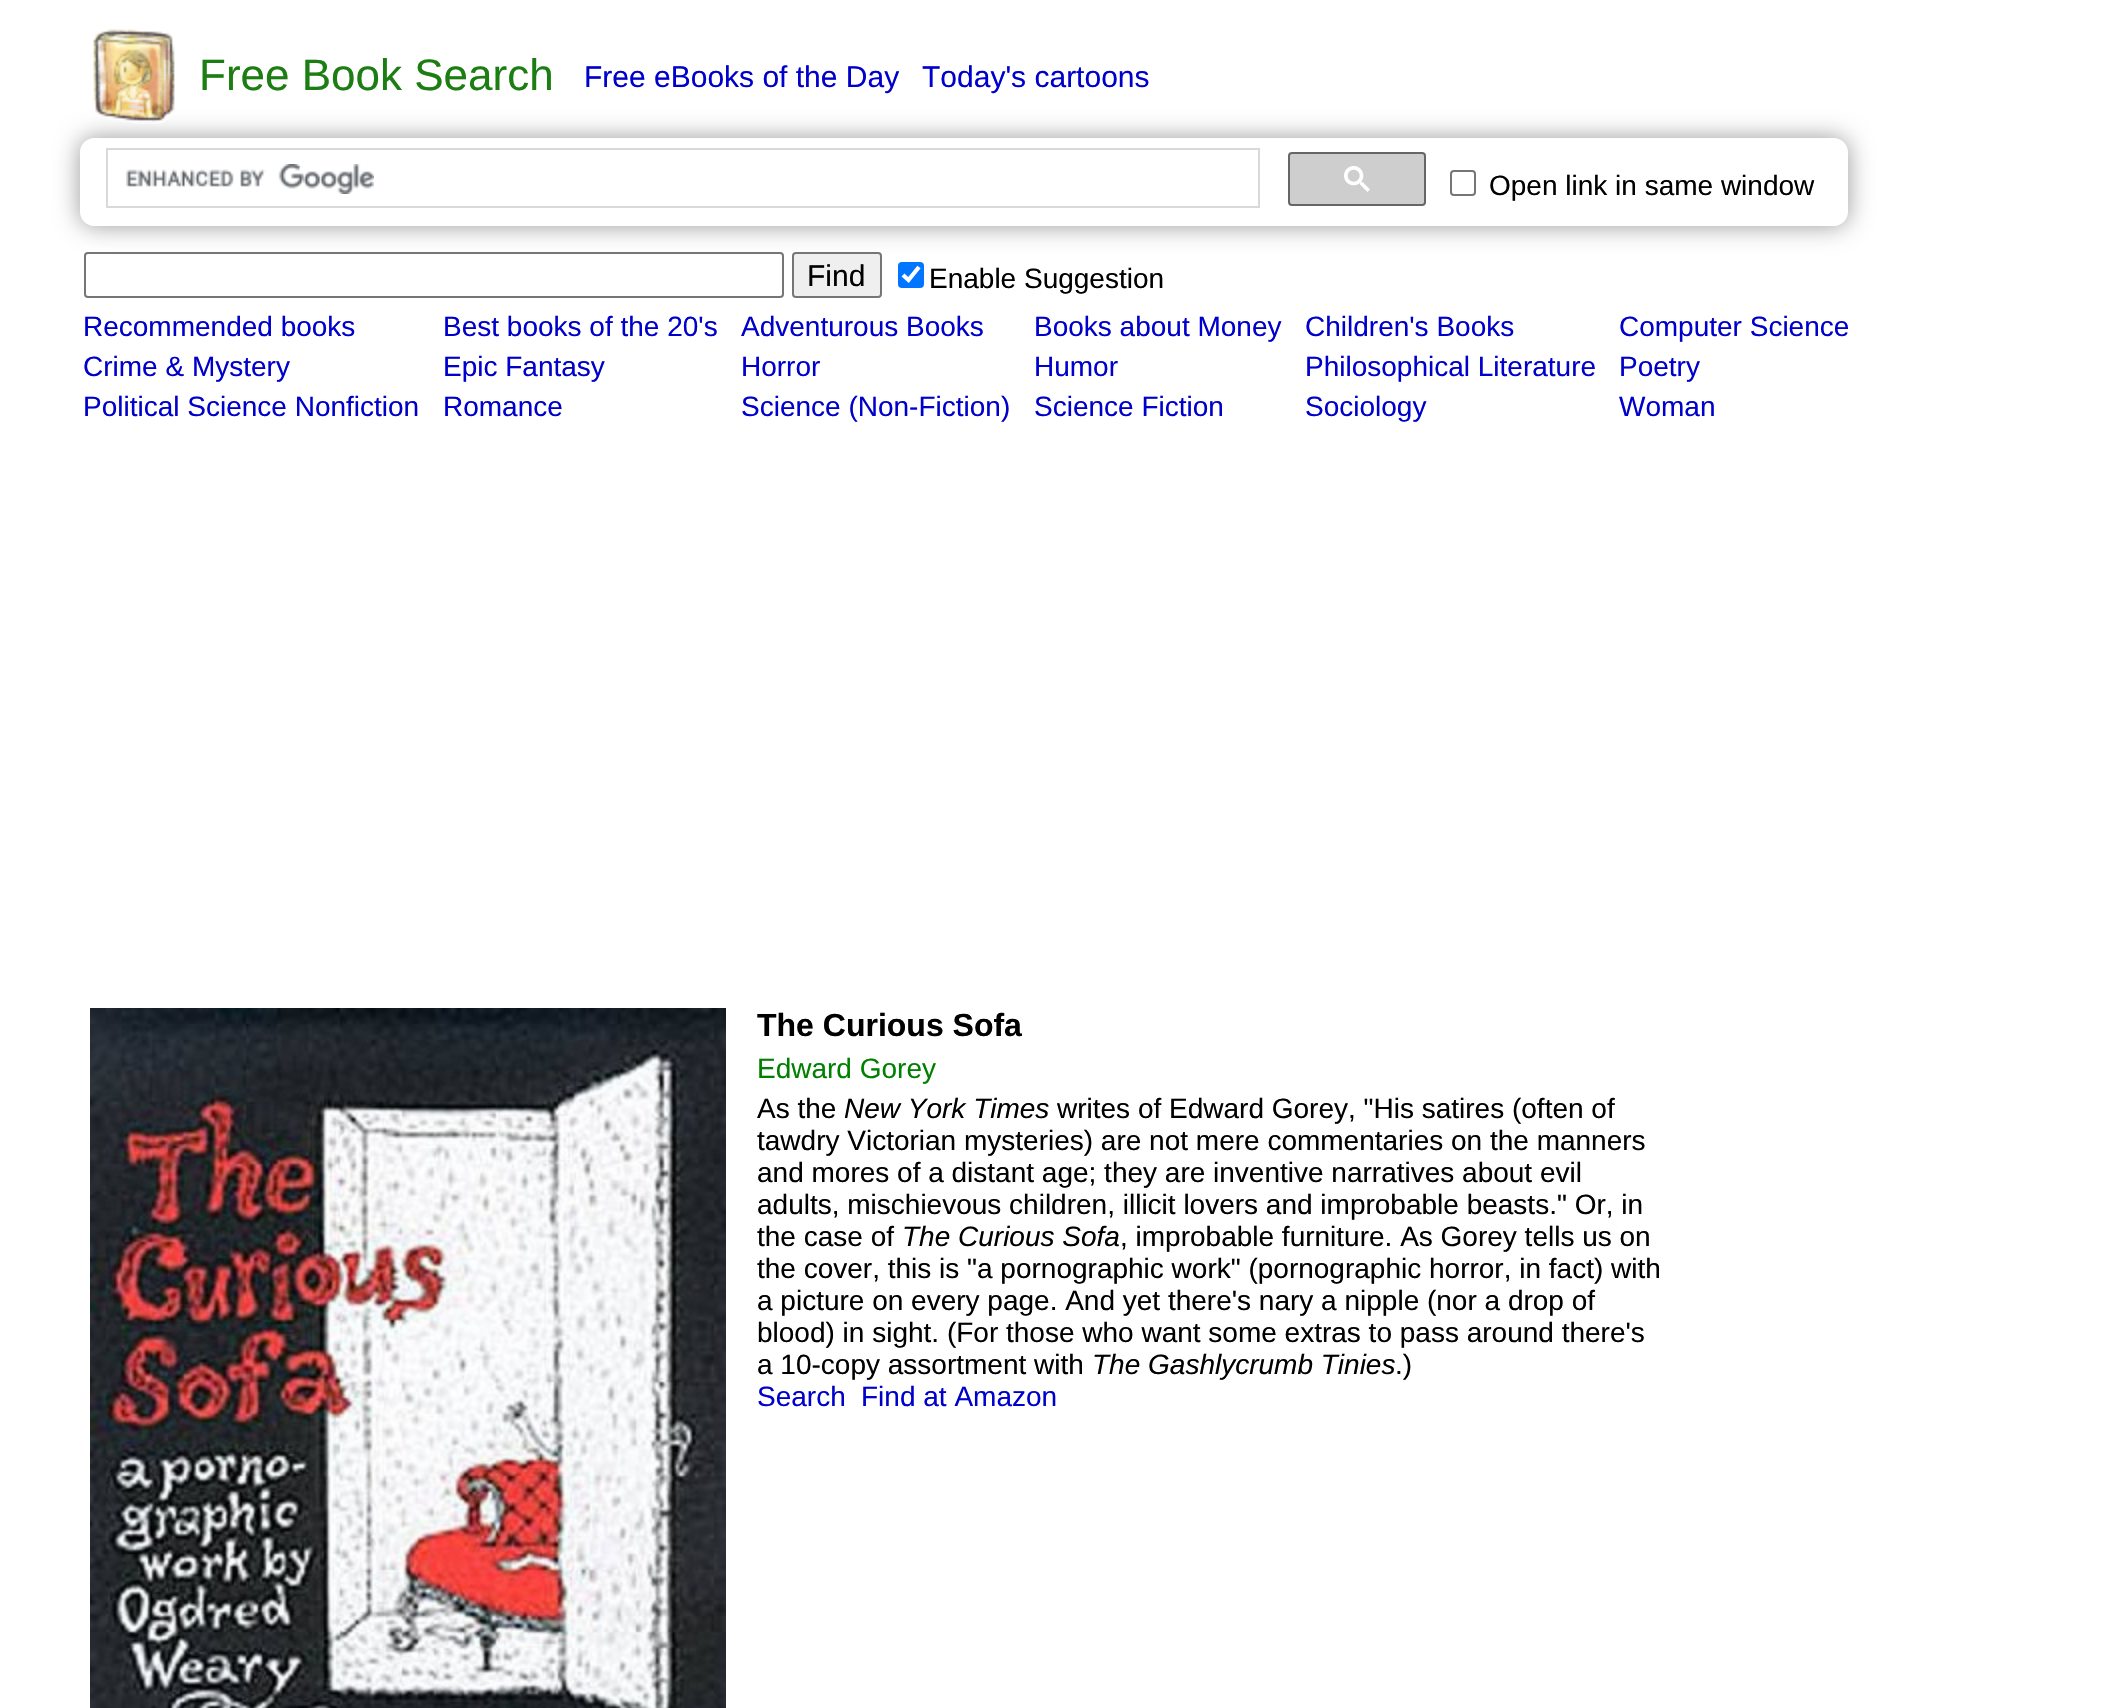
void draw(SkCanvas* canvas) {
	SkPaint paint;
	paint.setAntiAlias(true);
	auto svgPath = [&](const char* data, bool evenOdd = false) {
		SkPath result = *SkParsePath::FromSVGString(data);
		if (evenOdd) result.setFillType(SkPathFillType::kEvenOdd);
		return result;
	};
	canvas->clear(0xffffffff);
	canvas->save();
	canvas->clipPath(svgPath("M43 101H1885V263H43ZM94 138H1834C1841.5 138 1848 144.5 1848 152V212C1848 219.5 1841.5 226 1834 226H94C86.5 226 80 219.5 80 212V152C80 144.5 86.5 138 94 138Z", true), true);
	paint.setColor(0xff999999);
	paint.setMaskFilter(SkMaskFilter::MakeBlur(kNormal_SkBlurStyle, 12));
	canvas->drawRoundRect(SkRect::MakeXYWH(80, 138, 1768, 88), 14, 14, paint);
	paint.setMaskFilter(nullptr);
	canvas->restore();
	canvas->drawImageRect(SkImages::DeferredFromEncodedData(SkData::MakeFromFileName("img1.png")), SkRect::MakeXYWH(90, 29, 85, 95), SkSamplingOptions());
	SkFont f1(fontMgr->matchFamilyStyle("Liberation Sans", SkFontStyle::Normal()), 44);
	f1.setSubpixel(true);
	paint.setColor(0xff1c7e12);
	canvas->drawString("Free Book Search", 199, 90, f1, paint);
	SkFont f2(fontMgr->matchFamilyStyle("Liberation Sans", SkFontStyle::Normal()), 30);
	f2.setSubpixel(true);
	paint.setColor(0xff0000cc);
	canvas->drawString("Free eBooks of the Day", 584, 87, f2, paint);
	canvas->drawString("Today's cartoons", 922, 87, f2, paint);
	paint.setStroke(true);
	paint.setStrokeWidth(2);
	paint.setColor(0xffd9d9d9);
	canvas->drawRect(SkRect::MakeXYWH(107, 149, 1152, 58), paint);
	canvas->drawImageRect(SkImages::DeferredFromEncodedData(SkData::MakeFromFileName("img2.png")), SkRect::MakeXYWH(126, 164, 248, 30), SkSamplingOptions());
	paint.setStroke(false);
	paint.setColor(0xffcecece);
	canvas->drawRoundRect(SkRect::MakeXYWH(1289, 153, 136, 52), 3, 3, paint);
	paint.setStroke(true);
	paint.setColor(0xff666666);
	canvas->drawRoundRect(SkRect::MakeXYWH(1289, 153, 136, 52), 3, 3, paint);
	canvas->drawImageRect(SkImages::DeferredFromEncodedData(SkData::MakeFromFileName("img3.png")), SkRect::MakeXYWH(1344, 166, 26, 26), SkSamplingOptions());
	paint.setColor(0xff767676);
	canvas->drawRoundRect(SkRect::MakeXYWH(1451, 171, 24, 24), 3, 3, paint);
	SkFont f3(fontMgr->matchFamilyStyle("Liberation Sans", SkFontStyle::Normal()), 28);
	f3.setSubpixel(true);
	paint.setStroke(false);
	paint.setColor(0xff000000);
	canvas->drawString("Open link in same window", 1489, 195, f3, paint);
	paint.setStroke(true);
	paint.setColor(0xff767676);
	canvas->drawRoundRect(SkRect::MakeXYWH(85, 253, 698, 44), 3, 3, paint);
	paint.setStroke(false);
	paint.setColor(0xffefefef);
	canvas->drawRoundRect(SkRect::MakeXYWH(793, 253, 88, 44), 3, 3, paint);
	paint.setStroke(true);
	paint.setColor(0xff767676);
	canvas->drawRoundRect(SkRect::MakeXYWH(793, 253, 88, 44), 3, 3, paint);
	paint.setStroke(false);
	paint.setColor(0xff000000);
	canvas->drawString("Find", 807, 286, f2, paint);
	paint.setColor(0xff0075ff);
	canvas->drawRoundRect(SkRect::MakeXYWH(898, 262, 26, 26), 4, 4, paint);
	paint.setStroke(true);
	paint.setStrokeWidth(4.2);
	paint.setColor(0xffffffff);
	canvas->drawPath(svgPath("M903 275L908.5 280L919 267"), paint);
	paint.setStroke(false);
	paint.setColor(0xff000000);
	canvas->drawString("Enable Suggestion", 929, 288, f3, paint);
	paint.setColor(0xff0000cc);
	canvas->drawString("Recommended books", 83, 336, f3, paint);
	canvas->drawString("Best books of the 20's", 443, 336, f3, paint);
	canvas->drawString("Adventurous Books", 741, 336, f3, paint);
	canvas->drawString("Books about Money", 1034, 336, f3, paint);
	canvas->drawString("Children's Books", 1305, 336, f3, paint);
	canvas->drawString("Computer Science", 1619, 336, f3, paint);
	canvas->drawString("Crime & Mystery", 83, 376, f3, paint);
	canvas->drawString("Epic Fantasy", 443, 376, f3, paint);
	canvas->drawString("Horror", 741, 376, f3, paint);
	canvas->drawString("Humor", 1034, 376, f3, paint);
	canvas->drawString("Philosophical Literature", 1305, 376, f3, paint);
	canvas->drawString("Poetry", 1619, 376, f3, paint);
	canvas->drawString("Political Science Nonfiction", 83, 416, f3, paint);
	canvas->drawString("Romance", 443, 416, f3, paint);
	canvas->drawString("Science (Non-Fiction)", 741, 416, f3, paint);
	canvas->drawString("Science Fiction", 1034, 416, f3, paint);
	canvas->drawString("Sociology", 1305, 416, f3, paint);
	canvas->drawString("Woman", 1619, 416, f3, paint);
	canvas->drawImageRect(SkImages::DeferredFromEncodedData(SkData::MakeFromFileName("img4.png")), SkRect::MakeXYWH(90, 1008, 636, 700), SkSamplingOptions());
	SkFont f4(fontMgr->matchFamilyStyle("Liberation Sans", SkFontStyle::Bold()), 32);
	f4.setSubpixel(true);
	paint.setColor(0xff000000);
	canvas->drawString("The Curious Sofa", 757, 1036, f4, paint);
	paint.setColor(0xff008000);
	canvas->drawString("Edward Gorey", 757, 1078, f3, paint);
	paint.setColor(0xff000000);
	canvas->drawString("As the", 757, 1118, f3, paint);
	SkFont f5(fontMgr->matchFamilyStyle("Liberation Sans", SkFontStyle::Italic()), 28);
	f5.setSubpixel(true);
	canvas->drawString("New York Times", 844, 1118, f5, paint);
	canvas->drawString("writes of Edward Gorey, \"His satires (often of", 1057, 1118, f3, paint);
	canvas->drawString("tawdry Victorian mysteries) are not mere commentaries on the manners", 757, 1150, f3, paint);
	canvas->drawString("and mores of a distant age; they are inventive narratives about evil", 757, 1182, f3, paint);
	canvas->drawString("adults, mischievous children, illicit lovers and improbable beasts.\" Or, in", 757, 1214, f3, paint);
	canvas->drawString("the case of", 757, 1246, f3, paint);
	canvas->drawString("The Curious Sofa", 902, 1246, f5, paint);
	canvas->drawString(", improbable furniture. As Gorey tells us on", 1120, 1246, f3, paint);
	canvas->drawString("the cover, this is \"a pornographic work\" (pornographic horror, in fact) with", 757, 1278, f3, paint);
	canvas->drawString("a picture on every page. And yet there's nary a nipple (nor a drop of", 757, 1310, f3, paint);
	canvas->drawString("blood) in sight. (For those who want some extras to pass around there's", 757, 1342, f3, paint);
	canvas->drawString("a 10-copy assortment with", 757, 1374, f3, paint);
	canvas->drawString("The Gashlycrumb Tinies", 1092, 1374, f5, paint);
	canvas->drawString(".)", 1395, 1374, f3, paint);
	paint.setColor(0xff0000cc);
	canvas->drawString("Search", 757, 1406, f3, paint);
	canvas->drawString("Find at Amazon", 861, 1406, f3, paint);
}
